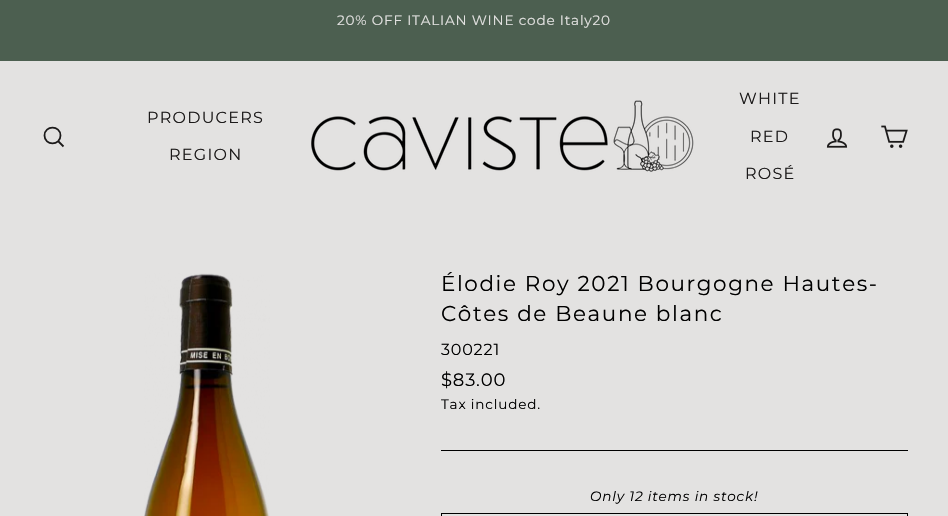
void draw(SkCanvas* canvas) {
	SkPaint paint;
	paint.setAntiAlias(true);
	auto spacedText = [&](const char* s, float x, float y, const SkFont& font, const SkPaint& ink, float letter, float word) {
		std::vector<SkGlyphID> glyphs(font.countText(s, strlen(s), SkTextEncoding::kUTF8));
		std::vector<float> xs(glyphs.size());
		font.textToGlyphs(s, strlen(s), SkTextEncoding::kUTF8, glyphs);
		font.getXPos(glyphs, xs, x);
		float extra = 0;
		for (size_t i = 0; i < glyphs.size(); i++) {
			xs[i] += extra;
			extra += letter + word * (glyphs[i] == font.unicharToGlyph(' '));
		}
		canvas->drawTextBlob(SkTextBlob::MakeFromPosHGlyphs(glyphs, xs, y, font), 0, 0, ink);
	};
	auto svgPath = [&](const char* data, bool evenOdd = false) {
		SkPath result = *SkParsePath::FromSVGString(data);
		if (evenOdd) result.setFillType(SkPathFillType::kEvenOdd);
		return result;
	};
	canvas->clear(0xffe3e2e1);
	paint.setColor(0xff4c5f50);
	canvas->drawRect(SkRect::MakeXYWH(0, 0, 948, 61), paint);
	SkFont f1(fontMgr->matchFamilyStyle("Montserrat", SkFontStyle::Normal()), 13.6);
	f1.setSubpixel(true);
	paint.setColor(0xffe3e2e1);
	spacedText("20% OFF ITALIAN WINE code Italy20", 337, 25, f1, paint, 0.8, 0);
	paint.setStroke(true);
	paint.setStrokeWidth(1.8);
	paint.setColor(0xff1c1a1a);
	canvas->drawPath(svgPath("M60.5 135.5C60.5 146 44.5 146 44.5 135.5C44.5 125 60.5 125 60.5 135.5ZM63.5 146.5L58.5 141.5"), paint);
	SkFont f2(fontMgr->matchFamilyStyle("Montserrat", SkFontStyle::Normal()), 16);
	f2.setSubpixel(true);
	paint.setStroke(false);
	spacedText("PRODUCERS", 147, 123, f2, paint, 1.25, 0);
	spacedText("REGION", 169, 160, f2, paint, 1.25, 0);
	canvas->drawImageRect(SkImages::DeferredFromEncodedData(SkData::MakeFromFileName("img1.png")), SkRect::MakeXYWH(311, 100, 383, 72), SkSamplingOptions());
	spacedText("WHITE", 739, 104, f2, paint, 1.25, 0);
	spacedText("RED", 750, 142, f2, paint, 1.25, 0);
	spacedText("ROSÉ", 745, 179, f2, paint, 1.25, 0);
	canvas->drawImageRect(SkImages::DeferredFromEncodedData(SkData::MakeFromFileName("img2.png")), SkRect::MakeXYWH(826, 128, 22, 20), SkSamplingOptions());
	canvas->drawImageRect(SkImages::DeferredFromEncodedData(SkData::MakeFromFileName("img3.png")), SkRect::MakeXYWH(881, 125, 27, 23), SkSamplingOptions());
	canvas->drawImageRect(SkImages::DeferredFromEncodedData(SkData::MakeFromFileName("img4.png")), SkRect::MakeXYWH(144, 273, 126, 243), SkSamplingOptions());
	SkFont f3(fontMgr->matchFamilyStyle("Montserrat", SkFontStyle::Normal()), 21.5);
	f3.setSubpixel(true);
	paint.setColor(0xff000000);
	spacedText("Élodie Roy 2021 Bourgogne Hautes-", 441, 291, f3, paint, 1.6, 0);
	spacedText("Côtes de Beaune blanc", 441, 321, f3, paint, 1.6, 0);
	spacedText("300221", 441, 355, f2, paint, 0.8, 0);
	SkFont f4(fontMgr->matchFamilyStyle("Montserrat", SkFontStyle::Normal()), 18);
	f4.setSubpixel(true);
	spacedText("$83.00", 441, 386, f4, paint, 0.8, 0);
	spacedText("Tax included.", 441, 409, f1, paint, 0.8, 0);
	canvas->drawRect(SkRect::MakeXYWH(441, 450, 467, 1), paint);
	SkFont f5(fontMgr->matchFamilyStyle("Montserrat", SkFontStyle::Italic()), 13.6);
	f5.setSubpixel(true);
	spacedText("Only 12 items in stock!", 590, 501, f5, paint, 0.8, 0);
	paint.setStroke(true);
	paint.setStrokeWidth(1);
	canvas->drawRect(SkRect::MakeXYWH(441.5, 513.5, 466, 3), paint);
}
